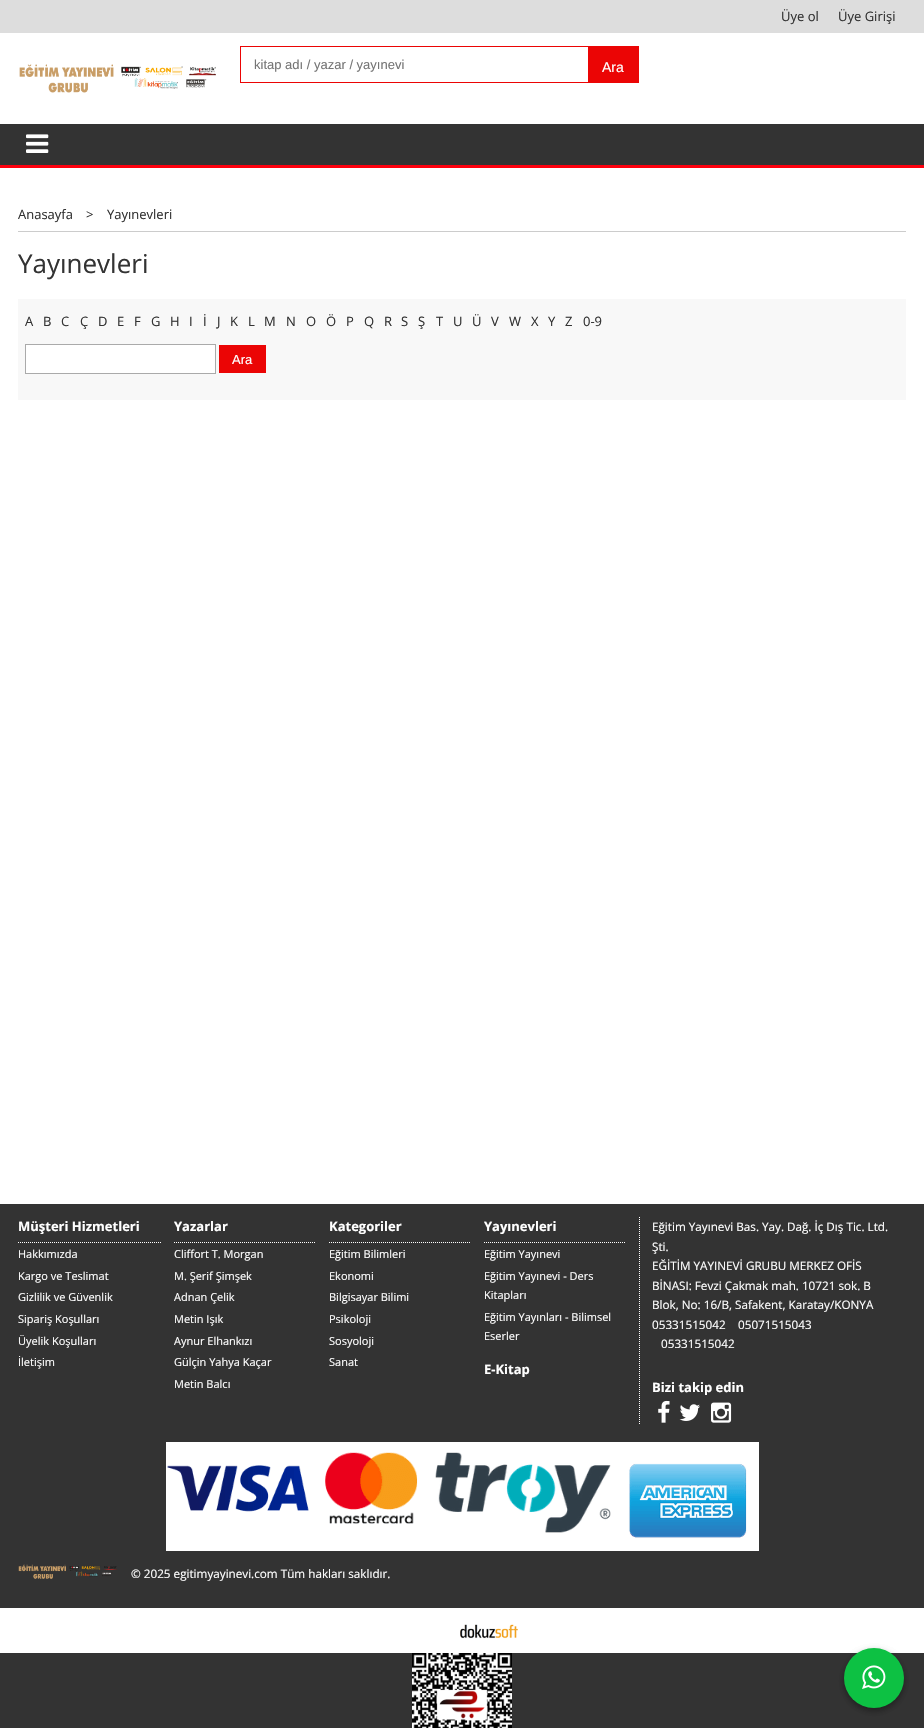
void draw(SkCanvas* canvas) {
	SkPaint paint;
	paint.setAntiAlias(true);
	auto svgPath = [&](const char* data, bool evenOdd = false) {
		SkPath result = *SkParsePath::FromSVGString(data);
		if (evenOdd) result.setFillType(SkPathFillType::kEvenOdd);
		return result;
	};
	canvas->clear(0xffffffff);
	paint.setColor(0xffdddddd);
	canvas->drawRect(SkRect::MakeXYWH(0, 0, 924, 33), paint);
	SkFont f1(fontMgr->matchFamilyStyle("Open Sans", SkFontStyle::Normal()), 13);
	f1.setSubpixel(true);
	paint.setColor(0xff333333);
	canvas->drawString("Üye ol", 781, 21, f1, paint);
	canvas->drawString("Üye Girişi", 838, 21, f1, paint);
	canvas->drawImageRect(SkImages::DeferredFromEncodedData(SkData::MakeFromFileName("img1.png")), SkRect::MakeXYWH(19, 64, 197, 29), SkSamplingOptions());
	paint.setStroke(true);
	paint.setStrokeWidth(1);
	paint.setColor(0xffeb0505);
	canvas->drawRect(SkRect::MakeXYWH(240.5, 46.5, 398, 36), paint);
	SkFont f2(fontMgr->matchFamilyStyle("Liberation Sans", SkFontStyle::Normal()), 13);
	f2.setSubpixel(true);
	paint.setStroke(false);
	paint.setColor(0xff757575);
	canvas->drawString("kitap adı / yazar / yayınevi", 254, 69, f2, paint);
	paint.setColor(0xffeb0505);
	canvas->drawRect(SkRect::MakeXYWH(588, 47, 50, 35), paint);
	SkFont f3(fontMgr->matchFamilyStyle("Liberation Sans", SkFontStyle::Normal()), 14);
	f3.setSubpixel(true);
	paint.setColor(0xffffffff);
	canvas->drawString("Ara", 602, 72, f3, paint);
	paint.setColor(0xff333333);
	canvas->drawRect(SkRect::MakeXYWH(0, 124, 924, 41), paint);
	paint.setColor(0xfffd000e);
	canvas->drawRect(SkRect::MakeXYWH(0, 165, 924, 3), paint);
	canvas->drawImageRect(SkImages::DeferredFromEncodedData(SkData::MakeFromFileName("img2.png")), SkRect::MakeXYWH(26, 134, 23, 19), SkSamplingOptions());
	paint.setColor(0xffcccccc);
	canvas->drawRect(SkRect::MakeXYWH(18, 231, 888, 1), paint);
	paint.setColor(0xff333333);
	canvas->drawString("Anasayfa", 18, 219, f1, paint);
	canvas->drawString(">", 86, 219, f1, paint);
	canvas->drawString("Yayınevleri", 107, 219, f1, paint);
	SkFont f4(fontMgr->matchFamilyStyle("Open Sans", SkFontStyle::Normal()), 26);
	f4.setSubpixel(true);
	canvas->drawString("Yayınevleri", 18, 273, f4, paint);
	paint.setColor(0xfff8f8f8);
	canvas->drawRect(SkRect::MakeXYWH(18, 299, 888, 101), paint);
	paint.setColor(0xff333333);
	canvas->drawString("A", 25, 326, f1, paint);
	canvas->drawString("B", 43, 326, f1, paint);
	canvas->drawString("C", 61, 326, f1, paint);
	canvas->drawString("Ç", 80, 326, f1, paint);
	canvas->drawString("D", 98, 326, f1, paint);
	canvas->drawString("E", 117, 326, f1, paint);
	canvas->drawString("F", 134, 326, f1, paint);
	canvas->drawString("G", 151, 326, f1, paint);
	canvas->drawString("H", 170, 326, f1, paint);
	canvas->drawString("I", 189, 326, f1, paint);
	canvas->drawString("İ", 203, 326, f1, paint);
	canvas->drawString("J", 217, 326, f1, paint);
	canvas->drawString("K", 230, 326, f1, paint);
	canvas->drawString("L", 248, 326, f1, paint);
	canvas->drawString("M", 264, 326, f1, paint);
	canvas->drawString("N", 286, 326, f1, paint);
	canvas->drawString("O", 306, 326, f1, paint);
	canvas->drawString("Ö", 326, 326, f1, paint);
	canvas->drawString("P", 346, 326, f1, paint);
	canvas->drawString("Q", 364, 326, f1, paint);
	canvas->drawString("R", 384, 326, f1, paint);
	canvas->drawString("S", 401, 326, f1, paint);
	canvas->drawString("Ş", 418, 326, f1, paint);
	canvas->drawString("T", 436, 326, f1, paint);
	canvas->drawString("U", 453, 326, f1, paint);
	canvas->drawString("Ü", 472, 326, f1, paint);
	canvas->drawString("V", 491, 326, f1, paint);
	canvas->drawString("W", 509, 326, f1, paint);
	canvas->drawString("X", 531, 326, f1, paint);
	canvas->drawString("Y", 548, 326, f1, paint);
	canvas->drawString("Z", 565, 326, f1, paint);
	canvas->drawString("0-9", 583, 326, f1, paint);
	paint.setColor(0xffffffff);
	canvas->drawRect(SkRect::MakeXYWH(25.5, 344.5, 190, 29), paint);
	paint.setStroke(true);
	paint.setColor(0xffaaaaaa);
	canvas->drawRect(SkRect::MakeXYWH(25.5, 344.5, 190, 29), paint);
	paint.setStroke(false);
	paint.setColor(0xffeb0505);
	canvas->drawRect(SkRect::MakeXYWH(219, 345, 47, 28), paint);
	paint.setColor(0xffffffff);
	canvas->drawString("Ara", 232, 364, f2, paint);
	paint.setColor(0xff333333);
	canvas->drawRect(SkRect::MakeXYWH(0, 1204, 924, 524), paint);
	SkFont f5(fontMgr->matchFamilyStyle("Open Sans", SkFontStyle::Bold()), 13);
	f5.setSubpixel(true);
	paint.setColor(0xffffffff);
	canvas->drawString("Müşteri Hizmetleri", 18, 1231, f5, paint);
	paint.setStroke(true);
	paint.setPathEffect(SkDashPathEffect::Make({{1, 1}}, 0));
	canvas->drawPath(svgPath("M18 1242.5H161"), paint);
	paint.setPathEffect(nullptr);
	SkFont f6(fontMgr->matchFamilyStyle("Open Sans", SkFontStyle::Normal()), 11);
	f6.setSubpixel(true);
	paint.setStroke(false);
	canvas->drawString("Hakkımızda", 18, 1258, f6, paint);
	canvas->drawString("Kargo ve Teslimat", 18, 1280, f6, paint);
	canvas->drawString("Gizlilik ve Güvenlik", 18, 1301, f6, paint);
	canvas->drawString("Sipariş Koşulları", 18, 1323, f6, paint);
	canvas->drawString("Üyelik Koşulları", 18, 1345, f6, paint);
	canvas->drawString("İletişim", 18, 1366, f6, paint);
	canvas->drawString("Yazarlar", 174, 1231, f5, paint);
	paint.setStroke(true);
	paint.setPathEffect(SkDashPathEffect::Make({{1, 1}}, 0));
	canvas->drawPath(svgPath("M174 1242.5H316"), paint);
	paint.setPathEffect(nullptr);
	paint.setStroke(false);
	canvas->drawString("Cliffort T. Morgan", 174, 1258, f6, paint);
	canvas->drawString("M. Şerif Şimşek", 174, 1280, f6, paint);
	canvas->drawString("Adnan Çelik", 174, 1301, f6, paint);
	canvas->drawString("Metin Işık", 174, 1323, f6, paint);
	canvas->drawString("Aynur Elhankızı", 174, 1345, f6, paint);
	canvas->drawString("Gülçin Yahya Kaçar", 174, 1366, f6, paint);
	canvas->drawString("Metin Balcı", 174, 1388, f6, paint);
	canvas->drawString("Kategoriler", 329, 1231, f5, paint);
	paint.setStroke(true);
	paint.setPathEffect(SkDashPathEffect::Make({{1, 1}}, 0));
	canvas->drawPath(svgPath("M329 1242.5H471"), paint);
	paint.setPathEffect(nullptr);
	paint.setStroke(false);
	canvas->drawString("Eğitim Bilimleri", 329, 1258, f6, paint);
	canvas->drawString("Ekonomi", 329, 1280, f6, paint);
	canvas->drawString("Bilgisayar Bilimi", 329, 1301, f6, paint);
	canvas->drawString("Psikoloji", 329, 1323, f6, paint);
	canvas->drawString("Sosyoloji", 329, 1345, f6, paint);
	canvas->drawString("Sanat", 329, 1366, f6, paint);
	canvas->drawString("Yayınevleri", 484, 1231, f5, paint);
	paint.setStroke(true);
	paint.setPathEffect(SkDashPathEffect::Make({{1, 1}}, 0));
	canvas->drawPath(svgPath("M484 1242.5H626"), paint);
	paint.setPathEffect(nullptr);
	paint.setStroke(false);
	canvas->drawString("Eğitim Yayınevi", 484, 1258, f6, paint);
	canvas->drawString("Eğitim Yayınevi - Ders", 484, 1280, f6, paint);
	canvas->drawString("Kitapları", 484, 1299, f6, paint);
	canvas->drawString("Eğitim Yayınları - Bilimsel", 484, 1321, f6, paint);
	canvas->drawString("Eserler", 484, 1340, f6, paint);
	canvas->drawString("E-Kitap", 484, 1374, f5, paint);
	paint.setStroke(true);
	paint.setPathEffect(SkDashPathEffect::Make({{1, 1}}, 0));
	canvas->drawPath(svgPath("M639.5 1217V1425"), paint);
	paint.setPathEffect(nullptr);
	SkFont f7(fontMgr->matchFamilyStyle("Open Sans", SkFontStyle::Normal()), 11.7);
	f7.setSubpixel(true);
	paint.setStroke(false);
	canvas->drawString("Eğitim Yayınevi Bas. Yay. Dağ. İç Dış Tic. Ltd.", 652, 1231, f7, paint);
	canvas->drawString("Şti.", 652, 1251, f7, paint);
	canvas->drawString("EĞİTİM YAYINEVİ GRUBU MERKEZ OFİS", 652, 1270, f7, paint);
	canvas->drawString("BİNASI: Fevzi Çakmak mah. 10721 sok. B", 652, 1290, f7, paint);
	canvas->drawString("Blok, No: 16/B, Safakent, Karatay/KONYA", 652, 1309, f7, paint);
	canvas->drawString("05331515042", 652, 1329, f7, paint);
	canvas->drawString("05071515043", 738, 1329, f7, paint);
	canvas->drawString("05331515042", 661, 1348, f7, paint);
	canvas->drawString("Bizi takip edin", 652, 1392, f5, paint);
	canvas->drawImageRect(SkImages::DeferredFromEncodedData(SkData::MakeFromFileName("img3.png")), SkRect::MakeXYWH(658, 1400, 12, 23), SkSamplingOptions());
	canvas->drawImageRect(SkImages::DeferredFromEncodedData(SkData::MakeFromFileName("img4.png")), SkRect::MakeXYWH(679, 1404, 21, 17), SkSamplingOptions());
	canvas->drawImageRect(SkImages::DeferredFromEncodedData(SkData::MakeFromFileName("img5.png")), SkRect::MakeXYWH(711, 1402, 21, 21), SkSamplingOptions());
	canvas->drawImageRect(SkImages::DeferredFromEncodedData(SkData::MakeFromFileName("img6.png")), SkRect::MakeXYWH(166, 1442, 593, 109), SkSamplingOptions());
	canvas->drawImageRect(SkImages::DeferredFromEncodedData(SkData::MakeFromFileName("img7.png")), SkRect::MakeXYWH(18, 1564, 99, 15), SkSamplingOptions());
	canvas->drawString("© 2025 egitimyayinevi.com Tüm hakları saklıdır.", 131, 1578, f7, paint);
	canvas->drawRect(SkRect::MakeXYWH(0, 1608, 924, 45), paint);
	canvas->drawImageRect(SkImages::DeferredFromEncodedData(SkData::MakeFromFileName("img8.png")), SkRect::MakeXYWH(460, 1624, 58, 15), SkSamplingOptions());
	canvas->drawImageRect(SkImages::DeferredFromEncodedData(SkData::MakeFromFileName("img9.png")), SkRect::MakeXYWH(412, 1653, 100, 75), SkSamplingOptions());
	paint.setColor(0x3b000000);
	paint.setMaskFilter(SkMaskFilter::MakeBlur(kNormal_SkBlurStyle, 3));
	canvas->drawRoundRect(SkRect::MakeXYWH(844, 1651, 60, 60), 30, 30, paint);
	paint.setMaskFilter(nullptr);
	paint.setColor(0x29000000);
	paint.setMaskFilter(SkMaskFilter::MakeBlur(kNormal_SkBlurStyle, 3));
	canvas->drawRoundRect(SkRect::MakeXYWH(844, 1651, 60, 60), 30, 30, paint);
	paint.setMaskFilter(nullptr);
	paint.setColor(0xff0dc143);
	canvas->drawCircle(874, 1678, 30, paint);
	canvas->drawImageRect(SkImages::DeferredFromEncodedData(SkData::MakeFromFileName("img10.png")), SkRect::MakeXYWH(862, 1665, 24, 24), SkSamplingOptions());
}
